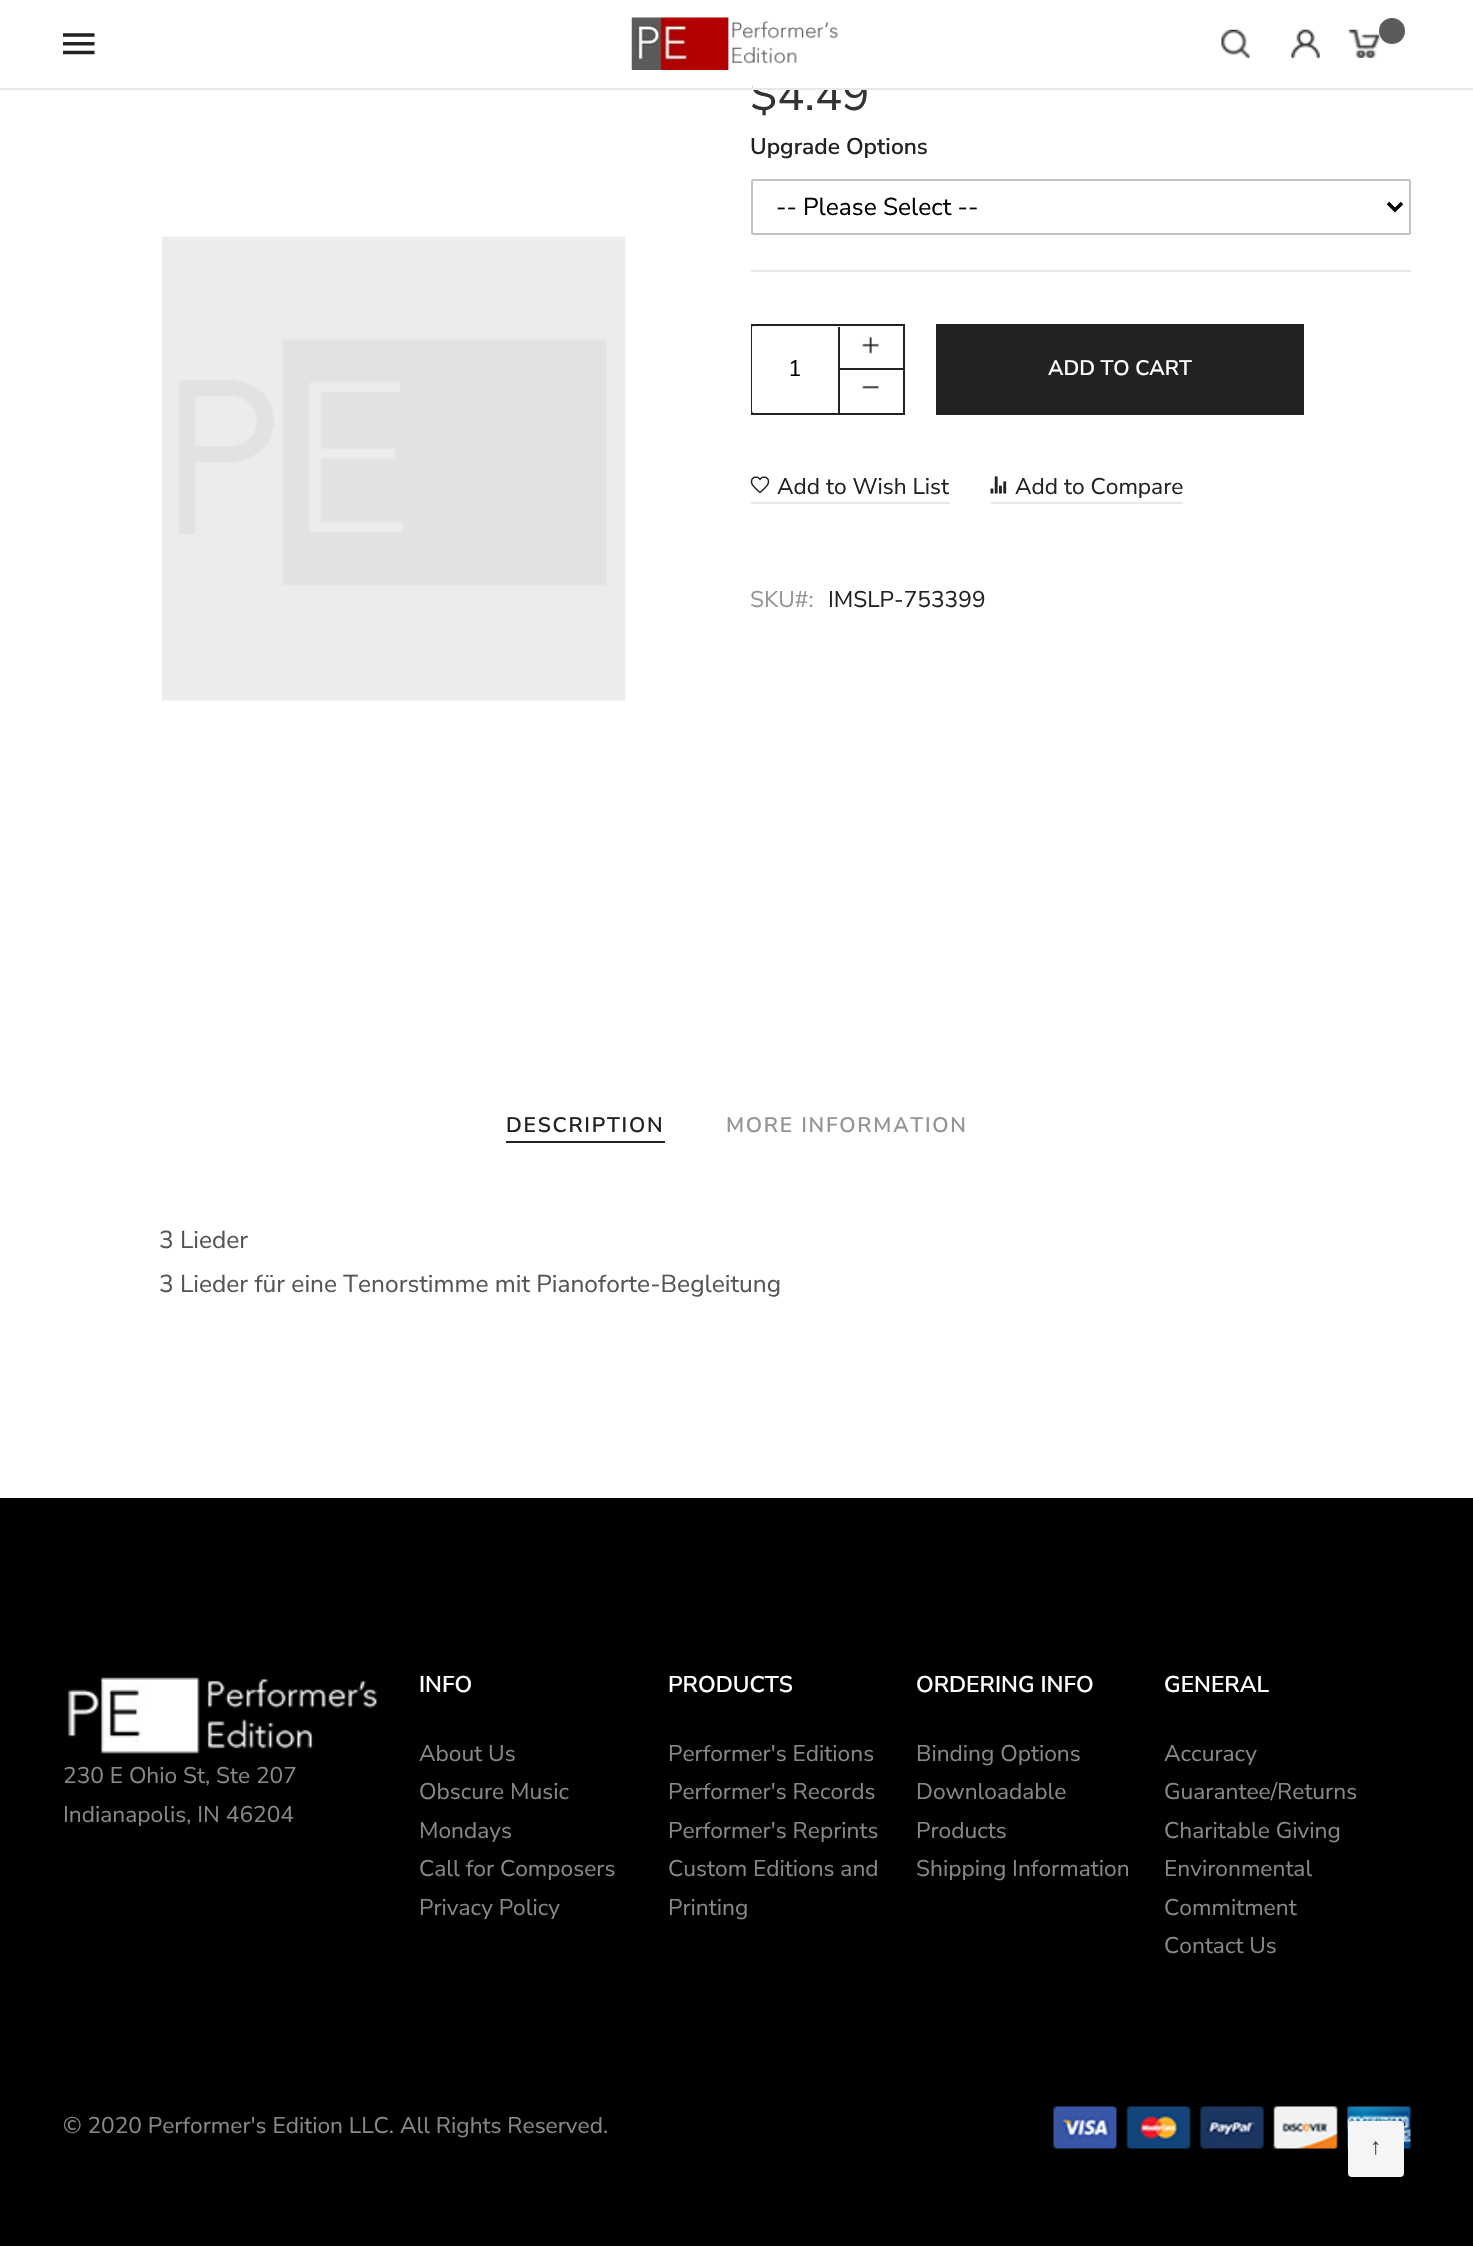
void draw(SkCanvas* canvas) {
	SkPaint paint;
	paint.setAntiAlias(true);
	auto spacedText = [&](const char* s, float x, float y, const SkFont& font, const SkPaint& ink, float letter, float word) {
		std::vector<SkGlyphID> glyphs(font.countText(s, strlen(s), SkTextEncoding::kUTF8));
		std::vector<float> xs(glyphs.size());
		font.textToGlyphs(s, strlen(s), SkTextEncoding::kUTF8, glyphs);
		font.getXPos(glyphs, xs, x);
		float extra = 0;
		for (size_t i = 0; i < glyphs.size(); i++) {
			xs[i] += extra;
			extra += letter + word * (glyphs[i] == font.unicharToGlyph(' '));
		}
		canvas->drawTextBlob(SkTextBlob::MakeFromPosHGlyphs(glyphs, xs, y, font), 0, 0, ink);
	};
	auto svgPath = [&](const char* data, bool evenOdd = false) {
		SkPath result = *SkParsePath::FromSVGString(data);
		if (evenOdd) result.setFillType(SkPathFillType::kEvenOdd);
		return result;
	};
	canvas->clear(0xffffffff);
	SkFont f1(fontMgr->matchFamilyStyle("Nunito Sans", SkFontStyle(200, SkFontStyle::kNormal_Width, SkFontStyle::kUpright_Slant)), 45.5);
	f1.setSubpixel(true);
	paint.setColor(0xff333333);
	canvas->drawString("$4.49", 750, 110, f1, paint);
	paint.setColor(0xffffffff);
	canvas->drawRect(SkRect::MakeXYWH(753, 72, 114, 16), paint);
	paint.setColor(0xffe8e8e8);
	canvas->drawRect(SkRect::MakeXYWH(0, 88, 1473, 2), paint);
	canvas->drawImageRect(SkImages::DeferredFromEncodedData(SkData::MakeFromFileName("img1.png")), SkRect::MakeXYWH(63, 33, 32, 22), SkSamplingOptions());
	canvas->drawImageRect(SkImages::DeferredFromEncodedData(SkData::MakeFromFileName("img2.png")), SkRect::MakeXYWH(631, 17, 207, 53), SkSamplingOptions());
	canvas->drawImageRect(SkImages::DeferredFromEncodedData(SkData::MakeFromFileName("img3.png")), SkRect::MakeXYWH(1221, 29, 29, 29), SkSamplingOptions());
	canvas->drawImageRect(SkImages::DeferredFromEncodedData(SkData::MakeFromFileName("img4.png")), SkRect::MakeXYWH(1291, 29, 29, 30), SkSamplingOptions());
	canvas->drawImageRect(SkImages::DeferredFromEncodedData(SkData::MakeFromFileName("img5.png")), SkRect::MakeXYWH(1348, 29, 32, 29), SkSamplingOptions());
	paint.setColor(0xff5b5b5b);
	canvas->drawCircle(1392, 31, 13, paint);
	canvas->drawImageRect(SkImages::DeferredFromEncodedData(SkData::MakeFromFileName("img6.png")), SkRect::MakeXYWH(161, 236, 465, 465), SkSamplingOptions());
	paint.setColor(0xffe8e8e8);
	canvas->drawRect(SkRect::MakeXYWH(751, 270, 660, 2), paint);
	SkFont f2(fontMgr->matchFamilyStyle("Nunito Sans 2", SkFontStyle(200, SkFontStyle::kNormal_Width, SkFontStyle::kUpright_Slant)), 22.75);
	f2.setSubpixel(true);
	paint.setColor(0xff222222);
	canvas->drawString("Upgrade Options", 750, 154, f2, paint);
	paint.setStroke(true);
	paint.setStrokeWidth(2);
	paint.setColor(0xffc2c2c2);
	canvas->drawRoundRect(SkRect::MakeXYWH(752, 180, 658, 54), 1, 1, paint);
	paint.setStrokeWidth(3.5);
	paint.setColor(0xff000000);
	canvas->drawPath(svgPath("M1388 203L1395 210L1402 203"), paint);
	SkFont f3(fontMgr->matchFamilyStyle("Nunito Sans", SkFontStyle(200, SkFontStyle::kNormal_Width, SkFontStyle::kUpright_Slant)), 24.5);
	f3.setSubpixel(true);
	paint.setStroke(false);
	canvas->drawString("-- Please Select --", 776, 215, f3, paint);
	paint.setStroke(true);
	paint.setStrokeWidth(2);
	paint.setColor(0xff222222);
	canvas->drawRect(SkRect::MakeXYWH(752, 325, 152, 89), paint);
	paint.setStroke(false);
	paint.setColor(0xffffffff);
	canvas->drawPath(svgPath("M754 326H838V413H754C753 413 752 412 752 411V327C752 326 753 326 754 326Z"), paint);
	paint.setColor(0xff222222);
	canvas->drawRect(SkRect::MakeXYWH(838, 327, 2, 86), paint);
	SkFont f4(fontMgr->matchFamilyStyle("Nunito Sans", SkFontStyle(200, SkFontStyle::kNormal_Width, SkFontStyle::kUpright_Slant)), 22.75);
	f4.setSubpixel(true);
	paint.setColor(0xff000000);
	canvas->drawString("1", 788, 376, f4, paint);
	canvas->drawImageRect(SkImages::DeferredFromEncodedData(SkData::MakeFromFileName("img7.png")), SkRect::MakeXYWH(862, 336, 17, 18), SkSamplingOptions());
	paint.setColor(0xff222222);
	canvas->drawRect(SkRect::MakeXYWH(840, 368, 63, 2), paint);
	canvas->drawImageRect(SkImages::DeferredFromEncodedData(SkData::MakeFromFileName("img8.png")), SkRect::MakeXYWH(862, 385, 17, 4), SkSamplingOptions());
	canvas->drawRect(SkRect::MakeXYWH(936, 324, 368, 91), paint);
	SkFont f5(fontMgr->matchFamilyStyle("Nunito Sans 2", SkFontStyle(200, SkFontStyle::kNormal_Width, SkFontStyle::kUpright_Slant)), 21);
	f5.setSubpixel(true);
	paint.setColor(0xffffffff);
	canvas->drawString("ADD TO CART", 1048, 375, f5, paint);
	paint.setColor(0xffe8e8e8);
	canvas->drawRect(SkRect::MakeXYWH(751, 502, 199, 2), paint);
	canvas->drawImageRect(SkImages::DeferredFromEncodedData(SkData::MakeFromFileName("img9.png")), SkRect::MakeXYWH(750, 476, 20, 18), SkSamplingOptions());
	paint.setColor(0xff222222);
	canvas->drawString("Add to Wish List", 777, 494, f4, paint);
	paint.setColor(0xffe8e8e8);
	canvas->drawRect(SkRect::MakeXYWH(991, 502, 192, 2), paint);
	canvas->drawImageRect(SkImages::DeferredFromEncodedData(SkData::MakeFromFileName("img10.png")), SkRect::MakeXYWH(990, 476, 17, 18), SkSamplingOptions());
	paint.setColor(0xff222222);
	canvas->drawString("Add to Compare", 1015, 494, f4, paint);
	paint.setColor(0xff959595);
	canvas->drawString("SKU#:", 750, 607, f4, paint);
	paint.setColor(0xff222222);
	canvas->drawString("IMSLP-753399", 828, 607, f4, paint);
	canvas->drawRect(SkRect::MakeXYWH(506, 1141, 159, 2), paint);
	spacedText("DESCRIPTION", 506, 1132, f5, paint, 1.75, 0);
	paint.setColor(0xff959595);
	spacedText("MORE INFORMATION", 726, 1132, f5, paint, 1.75, 0);
	paint.setColor(0xff555555);
	canvas->drawString("3 Lieder", 159, 1248, f3, paint);
	canvas->drawString("3 Lieder für eine Tenorstimme mit Pianoforte-Begleitung", 159, 1292, f3, paint);
	paint.setColor(0xff000000);
	canvas->drawRect(SkRect::MakeXYWH(0, 1498, 1473, 748), paint);
	canvas->drawImageRect(SkImages::DeferredFromEncodedData(SkData::MakeFromFileName("img11.png")), SkRect::MakeXYWH(67, 1677, 310, 77), SkSamplingOptions());
	paint.setColor(0xff888888);
	canvas->drawString("230 E Ohio St, Ste 207", 63, 1783, f4, paint);
	canvas->drawString("Indianapolis, IN 46204", 63, 1822, f4, paint);
	paint.setColor(0xffffffff);
	canvas->drawString("INFO", 419, 1692, f2, paint);
	paint.setColor(0xff888888);
	canvas->drawString("About Us", 419, 1761, f4, paint);
	canvas->drawString("Obscure Music", 419, 1799, f4, paint);
	canvas->drawString("Mondays", 419, 1838, f4, paint);
	canvas->drawString("Call for Composers", 419, 1876, f4, paint);
	canvas->drawString("Privacy Policy", 419, 1915, f4, paint);
	paint.setColor(0xffffffff);
	canvas->drawString("PRODUCTS", 668, 1692, f2, paint);
	paint.setColor(0xff888888);
	canvas->drawString("Performer's Editions", 668, 1761, f4, paint);
	canvas->drawString("Performer's Records", 668, 1799, f4, paint);
	canvas->drawString("Performer's Reprints", 668, 1838, f4, paint);
	canvas->drawString("Custom Editions and", 668, 1876, f4, paint);
	canvas->drawString("Printing", 668, 1915, f4, paint);
	paint.setColor(0xffffffff);
	canvas->drawString("ORDERING INFO", 916, 1692, f2, paint);
	paint.setColor(0xff888888);
	canvas->drawString("Binding Options", 916, 1761, f4, paint);
	canvas->drawString("Downloadable", 916, 1799, f4, paint);
	canvas->drawString("Products", 916, 1838, f4, paint);
	canvas->drawString("Shipping Information", 916, 1876, f4, paint);
	paint.setColor(0xffffffff);
	canvas->drawString("GENERAL", 1164, 1692, f2, paint);
	paint.setColor(0xff888888);
	canvas->drawString("Accuracy", 1164, 1761, f4, paint);
	canvas->drawString("Guarantee/Returns", 1164, 1799, f4, paint);
	canvas->drawString("Charitable Giving", 1164, 1838, f4, paint);
	canvas->drawString("Environmental", 1164, 1876, f4, paint);
	canvas->drawString("Commitment", 1164, 1915, f4, paint);
	canvas->drawString("Contact Us", 1164, 1953, f4, paint);
	canvas->drawImageRect(SkImages::DeferredFromEncodedData(SkData::MakeFromFileName("img12.png")), SkRect::MakeXYWH(1053, 2106, 358, 43), SkSamplingOptions());
	canvas->drawString("© 2020 Performer's Edition LLC. All Rights Reserved.", 63, 2133, f4, paint);
	paint.setColor(0xfff5f5f5);
	canvas->drawRoundRect(SkRect::MakeXYWH(1348, 2121, 56, 56), 4, 4, paint);
	SkFont f6(fontMgr->matchFamilyStyle("Liberation Serif", SkFontStyle::Normal()), 22.75);
	f6.setSubpixel(true);
	paint.setColor(0xff444444);
	canvas->drawString("↑", 1370, 2154, f6, paint);
}
